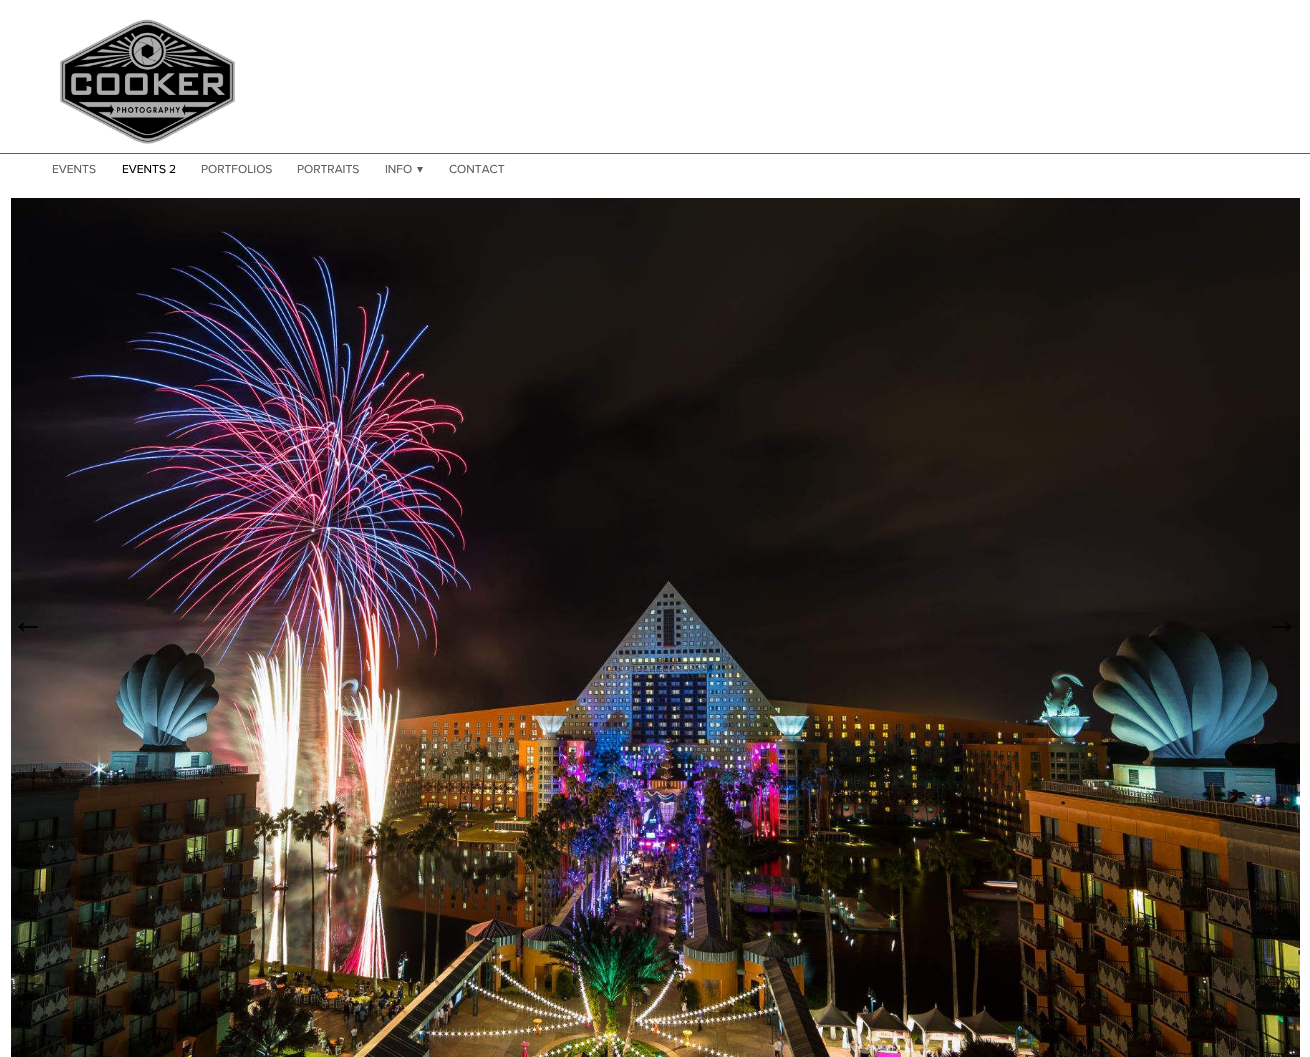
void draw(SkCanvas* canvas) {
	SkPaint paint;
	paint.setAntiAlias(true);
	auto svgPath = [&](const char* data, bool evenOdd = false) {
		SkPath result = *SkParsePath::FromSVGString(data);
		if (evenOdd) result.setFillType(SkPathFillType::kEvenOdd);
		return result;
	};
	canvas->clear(0xffffffff);
	paint.setColor(0xff5e5e5e);
	canvas->drawRect(SkRect::MakeXYWH(0, 153, 1310, 1), paint);
	canvas->drawImageRect(SkImages::DeferredFromEncodedData(SkData::MakeFromFileName("img1.png")), SkRect::MakeXYWH(60, 19, 175, 125), SkSamplingOptions());
	SkFont f1(fontMgr->matchFamilyStyle("Proxima Nova", SkFontStyle::Normal()), 12);
	f1.setSubpixel(true);
	canvas->drawString("EVENTS", 52, 173, f1, paint);
	paint.setColor(0xff030303);
	canvas->drawString("EVENTS 2", 122, 173, f1, paint);
	paint.setColor(0xff5e5e5e);
	canvas->drawString("PORTFOLIOS", 201, 173, f1, paint);
	canvas->drawString("PORTRAITS", 297, 173, f1, paint);
	canvas->drawString("INFO", 385, 173, f1, paint);
	SkFont f2(fontMgr->matchFamilyStyle("DejaVu Sans", SkFontStyle::Normal()), 12);
	f2.setSubpixel(true);
	canvas->drawString("▾", 417, 173, f2, paint);
	canvas->drawString("CONTACT", 449, 173, f1, paint);
	canvas->drawImageRect(SkImages::DeferredFromEncodedData(SkData::MakeFromFileName("img2.png")), SkRect::MakeXYWH(11, 198, 1289, 859), SkSamplingOptions());
	paint.setStroke(true);
	paint.setStrokeWidth(2.2);
	paint.setColor(0xff030303);
	canvas->drawPath(svgPath("M24 623L19.5 627L24 631M19.5 627H38"), paint);
	canvas->drawPath(svgPath("M1286 623L1290.5 627L1286 631M1290.5 627H1272"), paint);
}
